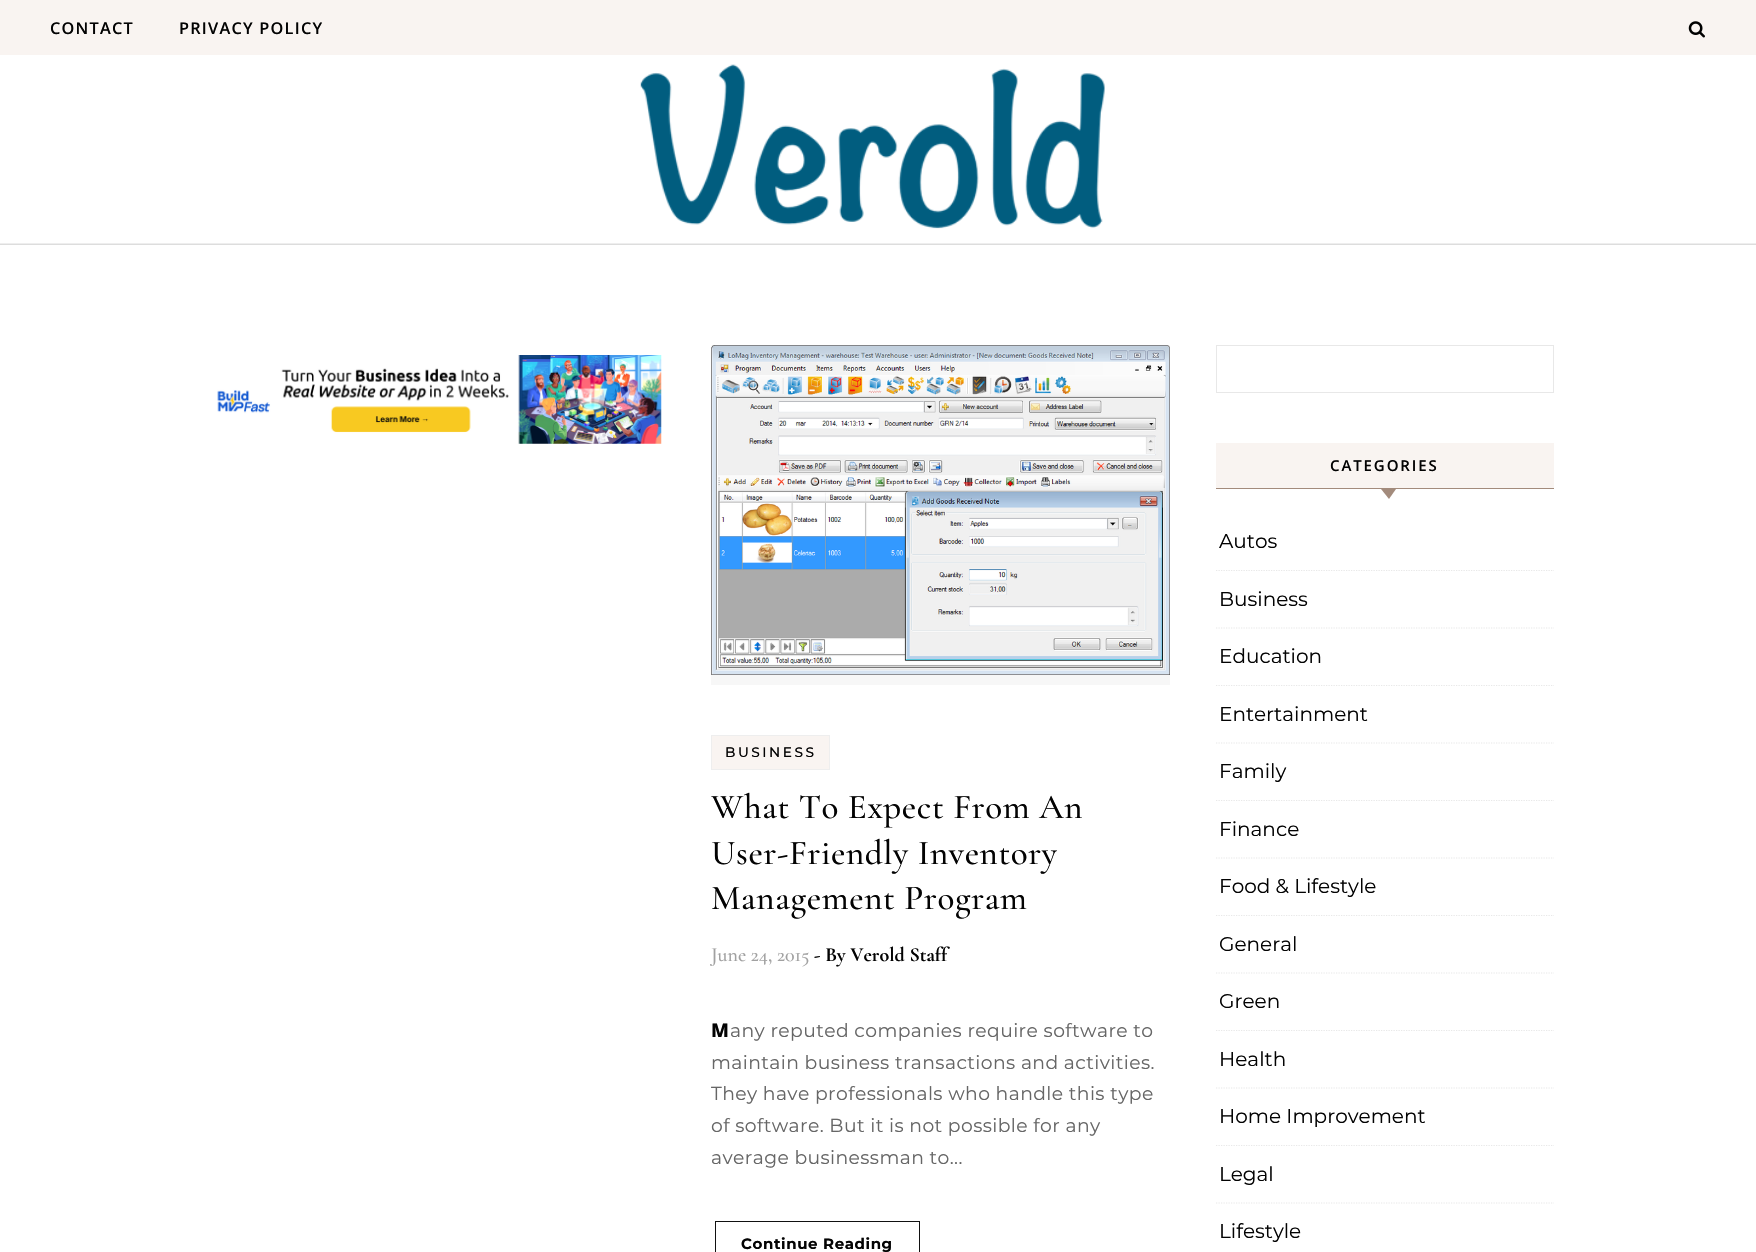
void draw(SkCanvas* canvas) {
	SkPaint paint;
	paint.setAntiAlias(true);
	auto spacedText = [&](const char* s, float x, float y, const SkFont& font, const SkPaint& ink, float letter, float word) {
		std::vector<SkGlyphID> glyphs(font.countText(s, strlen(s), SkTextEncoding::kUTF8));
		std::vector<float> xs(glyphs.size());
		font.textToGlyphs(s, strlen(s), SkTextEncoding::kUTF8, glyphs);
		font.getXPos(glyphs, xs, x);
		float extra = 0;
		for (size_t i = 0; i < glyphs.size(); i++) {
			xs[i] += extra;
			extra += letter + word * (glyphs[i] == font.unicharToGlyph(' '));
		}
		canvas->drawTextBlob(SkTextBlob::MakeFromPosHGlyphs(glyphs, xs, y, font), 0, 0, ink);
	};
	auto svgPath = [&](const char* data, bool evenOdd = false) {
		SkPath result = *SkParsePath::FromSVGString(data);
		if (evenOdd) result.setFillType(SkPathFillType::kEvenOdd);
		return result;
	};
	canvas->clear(0xffffffff);
	paint.setColor(0xfff9f4f1);
	canvas->drawRect(SkRect::MakeXYWH(0, 0, 1756, 55), paint);
	SkFont f1(fontMgr->matchFamilyStyle("Open Sans", SkFontStyle(600, SkFontStyle::kNormal_Width, SkFontStyle::kUpright_Slant)), 16.25);
	f1.setSubpixel(true);
	paint.setColor(0xff030303);
	spacedText("CONTACT", 50, 34, f1, paint, 1.25, 0);
	spacedText("PRIVACY POLICY", 179, 34, f1, paint, 1.25, 0);
	canvas->drawImageRect(SkImages::DeferredFromEncodedData(SkData::MakeFromFileName("img1.png")), SkRect::MakeXYWH(1688, 21, 17, 17), SkSamplingOptions());
	paint.setColor(0xffeeeeee);
	canvas->drawRect(SkRect::MakeXYWH(0, 243, 1756, 1), paint);
	canvas->drawImageRect(SkImages::DeferredFromEncodedData(SkData::MakeFromFileName("img2.png")), SkRect::MakeXYWH(640, 64, 465, 165), SkSamplingOptions());
	paint.setColor(0xffdddddd);
	canvas->drawRect(SkRect::MakeXYWH(0, 244, 1756, 1), paint);
	canvas->drawImageRect(SkImages::DeferredFromEncodedData(SkData::MakeFromFileName("img3.png")), SkRect::MakeXYWH(217, 355, 445, 89), SkSamplingOptions());
	paint.setColor(0xfff7f7f7);
	canvas->drawRect(SkRect::MakeXYWH(711, 345, 459, 340), paint);
	canvas->drawImageRect(SkImages::DeferredFromEncodedData(SkData::MakeFromFileName("img4.png")), SkRect::MakeXYWH(711, 345, 459, 330), SkSamplingOptions());
	paint.setColor(0xfff9f4f1);
	canvas->drawRect(SkRect::MakeXYWH(711.5, 735.5, 118, 34), paint);
	paint.setStroke(true);
	paint.setStrokeWidth(1);
	paint.setColor(0xffeeeeee);
	canvas->drawRect(SkRect::MakeXYWH(711.5, 735.5, 118, 34), paint);
	SkFont f2(fontMgr->matchFamilyStyle("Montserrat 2", SkFontStyle(100, SkFontStyle::kNormal_Width, SkFontStyle::kUpright_Slant)), 13.75);
	f2.setSubpixel(true);
	paint.setStroke(false);
	paint.setColor(0xff030303);
	spacedText("BUSINESS", 725, 757, f2, paint, 2.5, 0);
	SkFont f3(fontMgr->matchFamilyStyle("Cormorant Garamond", SkFontStyle(500, SkFontStyle::kNormal_Width, SkFontStyle::kUpright_Slant)), 35);
	f3.setSubpixel(true);
	spacedText("What To Expect From An", 711, 818, f3, paint, 0.6, 0);
	spacedText("User-Friendly Inventory", 711, 864, f3, paint, 0.6, 0);
	spacedText("Management Program", 711, 909, f3, paint, 0.6, 0);
	SkFont f4(fontMgr->matchFamilyStyle("Cormorant Garamond", SkFontStyle(500, SkFontStyle::kNormal_Width, SkFontStyle::kUpright_Slant)), 20);
	f4.setSubpixel(true);
	paint.setColor(0xffa1a1a1);
	canvas->drawString("June 24, 2015", 711, 961, f4, paint);
	SkFont f5(fontMgr->matchFamilyStyle("Cormorant Garamond", SkFontStyle::Bold()), 20);
	f5.setSubpixel(true);
	paint.setColor(0xff030303);
	canvas->drawString("- By Verold Staff", 814, 961, f5, paint);
	SkFont f6(fontMgr->matchFamilyStyle("Noto Sans", SkFontStyle(800, SkFontStyle::kNormal_Width, SkFontStyle::kUpright_Slant)), 18.75);
	f6.setSubpixel(true);
	spacedText("M", 711, 1037, f6, paint, 0.4, 0);
	SkFont f7(fontMgr->matchFamilyStyle("Montserrat", SkFontStyle(100, SkFontStyle::kNormal_Width, SkFontStyle::kUpright_Slant)), 18.75);
	f7.setSubpixel(true);
	paint.setColor(0xff666666);
	spacedText("any reputed companies require software to", 730, 1037, f7, paint, 0.4, 0);
	spacedText("maintain business transactions and activities.", 711, 1069, f7, paint, 0.4, 0);
	spacedText("They have professionals who handle this type", 711, 1100, f7, paint, 0.4, 0);
	spacedText("of software. But it is not possible for any", 711, 1132, f7, paint, 0.4, 0);
	spacedText("average businessman to...", 711, 1164, f7, paint, 0.4, 0);
	paint.setStroke(true);
	paint.setColor(0xff111111);
	canvas->drawRect(SkRect::MakeXYWH(715.5, 1221.5, 204, 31), paint);
	SkFont f8(fontMgr->matchFamilyStyle("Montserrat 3", SkFontStyle(100, SkFontStyle::kNormal_Width, SkFontStyle::kUpright_Slant)), 15);
	f8.setSubpixel(true);
	paint.setStroke(false);
	paint.setColor(0xff030303);
	spacedText("Continue Reading", 741, 1249, f8, paint, 0.6, 0);
	paint.setStroke(true);
	paint.setColor(0xffe8e8e8);
	canvas->drawRect(SkRect::MakeXYWH(1216.5, 345.5, 337, 47), paint);
	paint.setStroke(false);
	paint.setColor(0xfff9f4f1);
	canvas->drawRect(SkRect::MakeXYWH(1216, 443, 338, 45), paint);
	paint.setColor(0xffa38b7c);
	canvas->drawRect(SkRect::MakeXYWH(1216, 488, 338, 1), paint);
	SkFont f9(fontMgr->matchFamilyStyle("Open Sans", SkFontStyle(600, SkFontStyle::kNormal_Width, SkFontStyle::kUpright_Slant)), 15);
	f9.setSubpixel(true);
	paint.setColor(0xff030303);
	spacedText("CATEGORIES", 1330, 471, f9, paint, 1.9, 0);
	paint.setColor(0xffa38b7c);
	canvas->drawPath(svgPath("M1381 489H1396L1389 499Z"), paint);
	paint.setStroke(true);
	paint.setStrokeWidth(1.2);
	paint.setColor(0xffe8e8e8);
	paint.setPathEffect(SkDashPathEffect::Make({{1.25f, 1.25f}}, 0));
	canvas->drawPath(svgPath("M1216 570.5H1554"), paint);
	paint.setPathEffect(nullptr);
	SkFont f10(fontMgr->matchFamilyStyle("Montserrat", SkFontStyle(100, SkFontStyle::kNormal_Width, SkFontStyle::kUpright_Slant)), 20);
	f10.setSubpixel(true);
	paint.setStroke(false);
	paint.setColor(0xff030303);
	canvas->drawString("Autos", 1219, 548, f10, paint);
	paint.setStroke(true);
	paint.setColor(0xffe8e8e8);
	paint.setPathEffect(SkDashPathEffect::Make({{1.25f, 1.25f}}, 0));
	canvas->drawPath(svgPath("M1216 628H1554"), paint);
	paint.setPathEffect(nullptr);
	paint.setStroke(false);
	paint.setColor(0xff030303);
	canvas->drawString("Business", 1219, 606, f10, paint);
	paint.setStroke(true);
	paint.setColor(0xffe8e8e8);
	paint.setPathEffect(SkDashPathEffect::Make({{1.25f, 1.25f}}, 0));
	canvas->drawPath(svgPath("M1216 685.5H1554"), paint);
	paint.setPathEffect(nullptr);
	paint.setStroke(false);
	paint.setColor(0xff030303);
	canvas->drawString("Education", 1219, 663, f10, paint);
	paint.setStroke(true);
	paint.setColor(0xffe8e8e8);
	paint.setPathEffect(SkDashPathEffect::Make({{1.25f, 1.25f}}, 0));
	canvas->drawPath(svgPath("M1216 743H1554"), paint);
	paint.setPathEffect(nullptr);
	paint.setStroke(false);
	paint.setColor(0xff030303);
	canvas->drawString("Entertainment", 1219, 721, f10, paint);
	paint.setStroke(true);
	paint.setColor(0xffe8e8e8);
	paint.setPathEffect(SkDashPathEffect::Make({{1.25f, 1.25f}}, 0));
	canvas->drawPath(svgPath("M1216 800.5H1554"), paint);
	paint.setPathEffect(nullptr);
	paint.setStroke(false);
	paint.setColor(0xff030303);
	canvas->drawString("Family", 1219, 778, f10, paint);
	paint.setStroke(true);
	paint.setColor(0xffe8e8e8);
	paint.setPathEffect(SkDashPathEffect::Make({{1.25f, 1.25f}}, 0));
	canvas->drawPath(svgPath("M1216 858H1554"), paint);
	paint.setPathEffect(nullptr);
	paint.setStroke(false);
	paint.setColor(0xff030303);
	canvas->drawString("Finance", 1219, 836, f10, paint);
	paint.setStroke(true);
	paint.setColor(0xffe8e8e8);
	paint.setPathEffect(SkDashPathEffect::Make({{1.25f, 1.25f}}, 0));
	canvas->drawPath(svgPath("M1216 915.5H1554"), paint);
	paint.setPathEffect(nullptr);
	paint.setStroke(false);
	paint.setColor(0xff030303);
	canvas->drawString("Food & Lifestyle", 1219, 893, f10, paint);
	paint.setStroke(true);
	paint.setColor(0xffe8e8e8);
	paint.setPathEffect(SkDashPathEffect::Make({{1.25f, 1.25f}}, 0));
	canvas->drawPath(svgPath("M1216 973H1554"), paint);
	paint.setPathEffect(nullptr);
	paint.setStroke(false);
	paint.setColor(0xff030303);
	canvas->drawString("General", 1219, 951, f10, paint);
	paint.setStroke(true);
	paint.setColor(0xffe8e8e8);
	paint.setPathEffect(SkDashPathEffect::Make({{1.25f, 1.25f}}, 0));
	canvas->drawPath(svgPath("M1216 1030.5H1554"), paint);
	paint.setPathEffect(nullptr);
	paint.setStroke(false);
	paint.setColor(0xff030303);
	canvas->drawString("Green", 1219, 1008, f10, paint);
	paint.setStroke(true);
	paint.setColor(0xffe8e8e8);
	paint.setPathEffect(SkDashPathEffect::Make({{1.25f, 1.25f}}, 0));
	canvas->drawPath(svgPath("M1216 1088H1554"), paint);
	paint.setPathEffect(nullptr);
	paint.setStroke(false);
	paint.setColor(0xff030303);
	canvas->drawString("Health", 1219, 1066, f10, paint);
	paint.setStroke(true);
	paint.setColor(0xffe8e8e8);
	paint.setPathEffect(SkDashPathEffect::Make({{1.25f, 1.25f}}, 0));
	canvas->drawPath(svgPath("M1216 1145.5H1554"), paint);
	paint.setPathEffect(nullptr);
	paint.setStroke(false);
	paint.setColor(0xff030303);
	canvas->drawString("Home Improvement", 1219, 1123, f10, paint);
	paint.setStroke(true);
	paint.setColor(0xffe8e8e8);
	paint.setPathEffect(SkDashPathEffect::Make({{1.25f, 1.25f}}, 0));
	canvas->drawPath(svgPath("M1216 1203H1554"), paint);
	paint.setPathEffect(nullptr);
	paint.setStroke(false);
	paint.setColor(0xff030303);
	canvas->drawString("Legal", 1219, 1181, f10, paint);
	canvas->drawString("Lifestyle", 1219, 1238, f10, paint);
}
